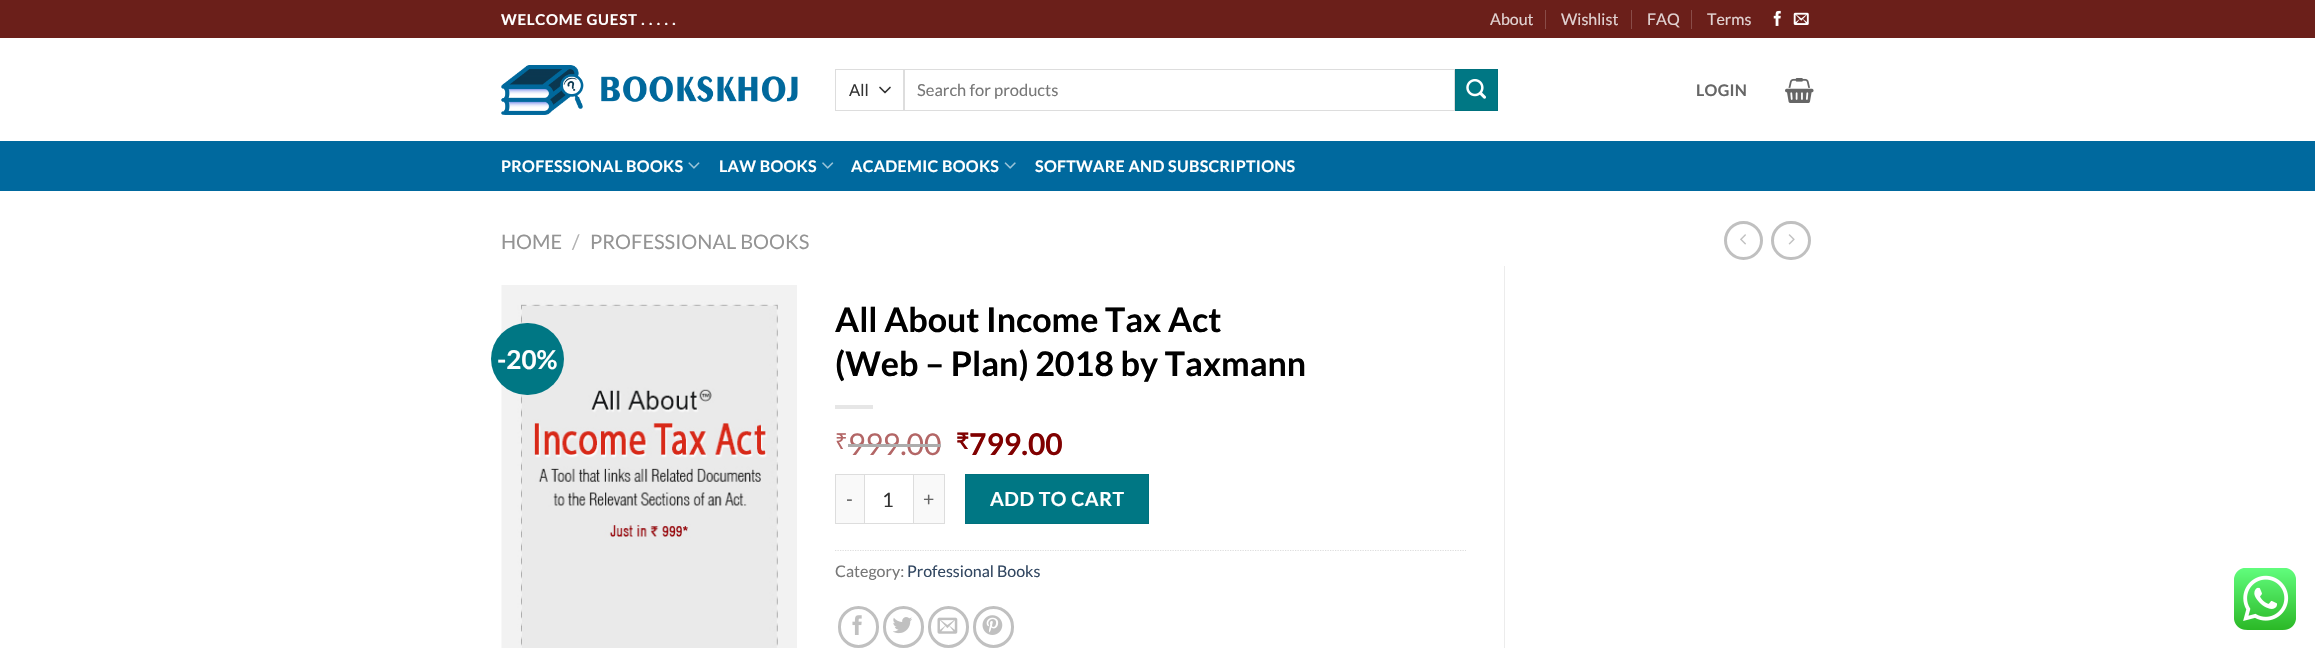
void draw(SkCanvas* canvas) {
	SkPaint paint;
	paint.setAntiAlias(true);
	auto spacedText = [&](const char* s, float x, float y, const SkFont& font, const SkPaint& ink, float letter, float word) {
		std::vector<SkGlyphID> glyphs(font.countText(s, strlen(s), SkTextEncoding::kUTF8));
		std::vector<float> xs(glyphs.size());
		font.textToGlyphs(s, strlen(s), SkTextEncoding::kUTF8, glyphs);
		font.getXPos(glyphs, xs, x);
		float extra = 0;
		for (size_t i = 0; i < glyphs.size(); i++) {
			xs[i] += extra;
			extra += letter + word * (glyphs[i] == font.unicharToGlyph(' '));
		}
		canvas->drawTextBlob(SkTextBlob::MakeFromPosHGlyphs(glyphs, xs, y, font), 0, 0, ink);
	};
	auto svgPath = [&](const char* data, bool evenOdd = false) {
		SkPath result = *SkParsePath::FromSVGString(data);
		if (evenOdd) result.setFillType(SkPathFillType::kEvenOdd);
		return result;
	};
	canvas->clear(0xffffffff);
	paint.setColor(0xff6b1f1a);
	canvas->drawRect(SkRect::MakeXYWH(0, 0, 2315, 38), paint);
	SkFont f1(fontMgr->matchFamilyStyle("Lato", SkFontStyle::Bold()), 15);
	f1.setSubpixel(true);
	paint.setColor(0xffffffff);
	spacedText("WELCOME GUEST . . . . .", 501, 25, f1, paint, 0.75, 0);
	SkFont f2(fontMgr->matchFamilyStyle("Lato", SkFontStyle::Normal()), 16);
	f2.setSubpixel(true);
	paint.setColor(0xffe1d2d1);
	canvas->drawString("About", 1490, 25, f2, paint);
	paint.setColor(0xff894c48);
	canvas->drawRect(SkRect::MakeXYWH(1545, 10, 1, 19), paint);
	paint.setColor(0xffe1d2d1);
	canvas->drawString("Wishlist", 1561, 25, f2, paint);
	paint.setColor(0xff894c48);
	canvas->drawRect(SkRect::MakeXYWH(1631, 10, 1, 19), paint);
	paint.setColor(0xffe1d2d1);
	canvas->drawString("FAQ", 1647, 25, f2, paint);
	paint.setColor(0xff894c48);
	canvas->drawRect(SkRect::MakeXYWH(1691, 10, 1, 19), paint);
	paint.setColor(0xffe1d2d1);
	canvas->drawString("Terms", 1707, 25, f2, paint);
	canvas->drawImageRect(SkImages::DeferredFromEncodedData(SkData::MakeFromFileName("img1.png")), SkRect::MakeXYWH(1773, 10, 8, 16), SkSamplingOptions());
	canvas->drawImageRect(SkImages::DeferredFromEncodedData(SkData::MakeFromFileName("img2.png")), SkRect::MakeXYWH(1793, 12, 16, 13), SkSamplingOptions());
	canvas->drawImageRect(SkImages::DeferredFromEncodedData(SkData::MakeFromFileName("img3.png")), SkRect::MakeXYWH(501, 65, 297, 50), SkSamplingOptions());
	paint.setStroke(true);
	paint.setStrokeWidth(1.7);
	paint.setStrokeCap(SkPaint::kRound_Cap);
	paint.setStrokeJoin(SkPaint::kRound_Join);
	paint.setColor(0xff333333);
	canvas->drawPath(svgPath("M880 87.5L885 92.5L890 87.5"), paint);
	paint.setStrokeWidth(1);
	paint.setStrokeCap(SkPaint::kButt_Cap);
	paint.setStrokeJoin(SkPaint::kMiter_Join);
	paint.setColor(0xffdddddd);
	canvas->drawRect(SkRect::MakeXYWH(835.5, 69.5, 68, 41), paint);
	SkFont f3(fontMgr->matchFamilyStyle("Lato", SkFontStyle::Normal()), 16.5);
	f3.setSubpixel(true);
	paint.setStroke(false);
	paint.setColor(0xff333333);
	canvas->drawString("All", 849, 96, f3, paint);
	paint.setStroke(true);
	paint.setColor(0xffdddddd);
	canvas->drawRect(SkRect::MakeXYWH(904.5, 69.5, 550, 41), paint);
	paint.setStroke(false);
	paint.setColor(0xff777777);
	canvas->drawString("Search for products", 917, 96, f3, paint);
	paint.setColor(0xff007784);
	canvas->drawRect(SkRect::MakeXYWH(1455.5, 69.5, 42, 41), paint);
	paint.setStroke(true);
	paint.setColor(0xff00717d);
	canvas->drawRect(SkRect::MakeXYWH(1455.5, 69.5, 42, 41), paint);
	canvas->drawImageRect(SkImages::DeferredFromEncodedData(SkData::MakeFromFileName("img4.png")), SkRect::MakeXYWH(1466, 79, 20, 20), SkSamplingOptions());
	SkFont f4(fontMgr->matchFamilyStyle("Lato", SkFontStyle::Bold()), 16);
	f4.setSubpixel(true);
	paint.setStroke(false);
	paint.setColor(0xff666666);
	spacedText("LOGIN", 1696, 96, f4, paint, 0.3, 0);
	canvas->drawImageRect(SkImages::DeferredFromEncodedData(SkData::MakeFromFileName("img5.png")), SkRect::MakeXYWH(1785, 78, 29, 25), SkSamplingOptions());
	paint.setColor(0xff00699e);
	canvas->drawRect(SkRect::MakeXYWH(0, 141, 2315, 50), paint);
	paint.setColor(0xffffffff);
	spacedText("PROFESSIONAL BOOKS", 501, 172, f4, paint, 0.3, 0);
	canvas->drawImageRect(SkImages::DeferredFromEncodedData(SkData::MakeFromFileName("img6.png")), SkRect::MakeXYWH(688, 162, 12, 7), SkSamplingOptions());
	spacedText("LAW BOOKS", 719, 172, f4, paint, 0.3, 0);
	canvas->drawImageRect(SkImages::DeferredFromEncodedData(SkData::MakeFromFileName("img7.png")), SkRect::MakeXYWH(822, 162, 12, 7), SkSamplingOptions());
	spacedText("ACADEMIC BOOKS", 851, 172, f4, paint, 0.3, 0);
	canvas->drawImageRect(SkImages::DeferredFromEncodedData(SkData::MakeFromFileName("img8.png")), SkRect::MakeXYWH(1004, 162, 12, 7), SkSamplingOptions());
	spacedText("SOFTWARE AND SUBSCRIPTIONS", 1035, 172, f4, paint, 0.3, 0);
	SkFont f5(fontMgr->matchFamilyStyle("Lato", SkFontStyle::Normal()), 20);
	f5.setSubpixel(true);
	paint.setColor(0xff949494);
	canvas->drawString("HOME", 501, 249, f5, paint);
	paint.setColor(0xffb2b2b2);
	canvas->drawString("/", 572, 249, f5, paint);
	paint.setColor(0xff949494);
	canvas->drawString("PROFESSIONAL BOOKS", 590, 249, f5, paint);
	paint.setStroke(true);
	paint.setStrokeWidth(3);
	paint.setColor(0xffc0c0c0);
	canvas->drawCircle(1743.5, 240.5, 18, paint);
	canvas->drawImageRect(SkImages::DeferredFromEncodedData(SkData::MakeFromFileName("img9.png")), SkRect::MakeXYWH(1740, 234, 6, 11), SkSamplingOptions());
	canvas->drawRoundRect(SkRect::MakeXYWH(1772.5, 222.5, 37, 36), 18, 18, paint);
	canvas->drawImageRect(SkImages::DeferredFromEncodedData(SkData::MakeFromFileName("img10.png")), SkRect::MakeXYWH(1788, 234, 7, 11), SkSamplingOptions());
	paint.setStroke(false);
	paint.setColor(0xffececec);
	canvas->drawRect(SkRect::MakeXYWH(1504, 266, 1, 382), paint);
	canvas->drawImageRect(SkImages::DeferredFromEncodedData(SkData::MakeFromFileName("img11.png")), SkRect::MakeXYWH(501, 285, 296, 363), SkSamplingOptions());
	paint.setColor(0xff007784);
	canvas->drawRoundRect(SkRect::MakeXYWH(491, 323, 73, 72), 36, 36, paint);
	SkFont f6(fontMgr->matchFamilyStyle("Lato", SkFontStyle::Bold()), 26);
	f6.setSubpixel(true);
	paint.setColor(0xffffffff);
	canvas->drawString("-20%", 497, 369, f6, paint);
	SkFont f7(fontMgr->matchFamilyStyle("Lato", SkFontStyle::Bold()), 34);
	f7.setSubpixel(true);
	paint.setColor(0xff000000);
	canvas->drawString("All About Income Tax Act", 835, 332, f7, paint);
	canvas->drawString("(Web – Plan) 2018 by Taxmann", 835, 376, f7, paint);
	paint.setColor(0xffe6e6e6);
	canvas->drawRect(SkRect::MakeXYWH(835, 405, 38, 4), paint);
	SkFont f8(fontMgr->matchFamilyStyle("Noto Sans", SkFontStyle::Normal()), 22);
	f8.setSubpixel(true);
	paint.setColor(0xffb36666);
	canvas->drawString("₹", 835, 449, f8, paint);
	SkFont f9(fontMgr->matchFamilyStyle("Lato", SkFontStyle::Normal()), 30);
	f9.setSubpixel(true);
	canvas->drawString("999.00", 848, 455, f9, paint);
	paint.setColor(0xffadadad);
	canvas->drawRect(SkRect::MakeXYWH(848, 444, 93, 3), paint);
	SkFont f10(fontMgr->matchFamilyStyle("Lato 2", SkFontStyle::Bold()), 22);
	f10.setSubpixel(true);
	paint.setColor(0xff800000);
	canvas->drawString("₹", 956, 449, f10, paint);
	SkFont f11(fontMgr->matchFamilyStyle("Lato", SkFontStyle::Bold()), 30);
	f11.setSubpixel(true);
	canvas->drawString("799.00", 969, 455, f11, paint);
	paint.setColor(0xfff9f9f9);
	canvas->drawRect(SkRect::MakeXYWH(836, 475, 28, 48), paint);
	paint.setColor(0xffdddddd);
	canvas->drawRect(SkRect::MakeXYWH(835, 474, 29, 1), paint);
	canvas->drawRect(SkRect::MakeXYWH(835, 523, 29, 1), paint);
	canvas->drawRect(SkRect::MakeXYWH(835, 474, 1, 50), paint);
	SkFont f12(fontMgr->matchFamilyStyle("Lato", SkFontStyle::Normal()), 19.5);
	f12.setSubpixel(true);
	paint.setColor(0xff666666);
	spacedText("-", 846, 506, f12, paint, 0.5, 0);
	paint.setStroke(true);
	paint.setStrokeWidth(1);
	paint.setColor(0xffdddddd);
	canvas->drawRect(SkRect::MakeXYWH(864.5, 474.5, 49, 49), paint);
	paint.setStroke(false);
	paint.setColor(0xff333333);
	canvas->drawString("1", 882, 507, f5, paint);
	paint.setColor(0xfff9f9f9);
	canvas->drawRect(SkRect::MakeXYWH(914, 475, 30, 48), paint);
	paint.setColor(0xffdddddd);
	canvas->drawRect(SkRect::MakeXYWH(914, 474, 31, 1), paint);
	canvas->drawRect(SkRect::MakeXYWH(944, 474, 1, 50), paint);
	canvas->drawRect(SkRect::MakeXYWH(914, 523, 31, 1), paint);
	paint.setColor(0xff666666);
	spacedText("+", 923, 506, f12, paint, 0.5, 0);
	paint.setColor(0xff007784);
	canvas->drawRect(SkRect::MakeXYWH(965.5, 474.5, 183, 49), paint);
	paint.setStroke(true);
	paint.setColor(0xff00717d);
	canvas->drawRect(SkRect::MakeXYWH(965.5, 474.5, 183, 49), paint);
	SkFont f13(fontMgr->matchFamilyStyle("Lato", SkFontStyle::Bold()), 19.5);
	f13.setSubpixel(true);
	paint.setStroke(false);
	paint.setColor(0xffffffff);
	spacedText("ADD TO CART", 990, 506, f13, paint, 0.5, 0);
	paint.setStroke(true);
	paint.setStrokeWidth(1.2);
	paint.setColor(0xffdddddd);
	paint.setPathEffect(SkDashPathEffect::Make({{1.25f, 1.25f}}, 0));
	canvas->drawPath(svgPath("M835 550.5H1466"), paint);
	paint.setPathEffect(nullptr);
	paint.setStroke(false);
	paint.setColor(0xff777777);
	canvas->drawString("Category:", 835, 577, f2, paint);
	paint.setColor(0xff334862);
	canvas->drawString("Professional Books", 907, 577, f2, paint);
	paint.setStroke(true);
	paint.setStrokeWidth(3);
	paint.setColor(0xffc0c0c0);
	canvas->drawRoundRect(SkRect::MakeXYWH(839.5, 607.5, 38, 39), 19, 19, paint);
	canvas->drawImageRect(SkImages::DeferredFromEncodedData(SkData::MakeFromFileName("img12.png")), SkRect::MakeXYWH(852, 615, 10, 20), SkSamplingOptions());
	canvas->drawRoundRect(SkRect::MakeXYWH(884.5, 607.5, 38, 39), 19, 19, paint);
	canvas->drawImageRect(SkImages::DeferredFromEncodedData(SkData::MakeFromFileName("img13.png")), SkRect::MakeXYWH(893, 617, 19, 17), SkSamplingOptions());
	canvas->drawRoundRect(SkRect::MakeXYWH(929.5, 607.5, 38, 39), 19, 19, paint);
	canvas->drawImageRect(SkImages::DeferredFromEncodedData(SkData::MakeFromFileName("img14.png")), SkRect::MakeXYWH(937, 617, 21, 17), SkSamplingOptions());
	canvas->drawRoundRect(SkRect::MakeXYWH(974.5, 607.5, 38, 39), 19, 19, paint);
	canvas->drawImageRect(SkImages::DeferredFromEncodedData(SkData::MakeFromFileName("img15.png")), SkRect::MakeXYWH(982, 615, 21, 20), SkSamplingOptions());
	canvas->drawImageRect(SkImages::DeferredFromEncodedData(SkData::MakeFromFileName("img16.png")), SkRect::MakeXYWH(2234, 568, 62, 62), SkSamplingOptions());
}
